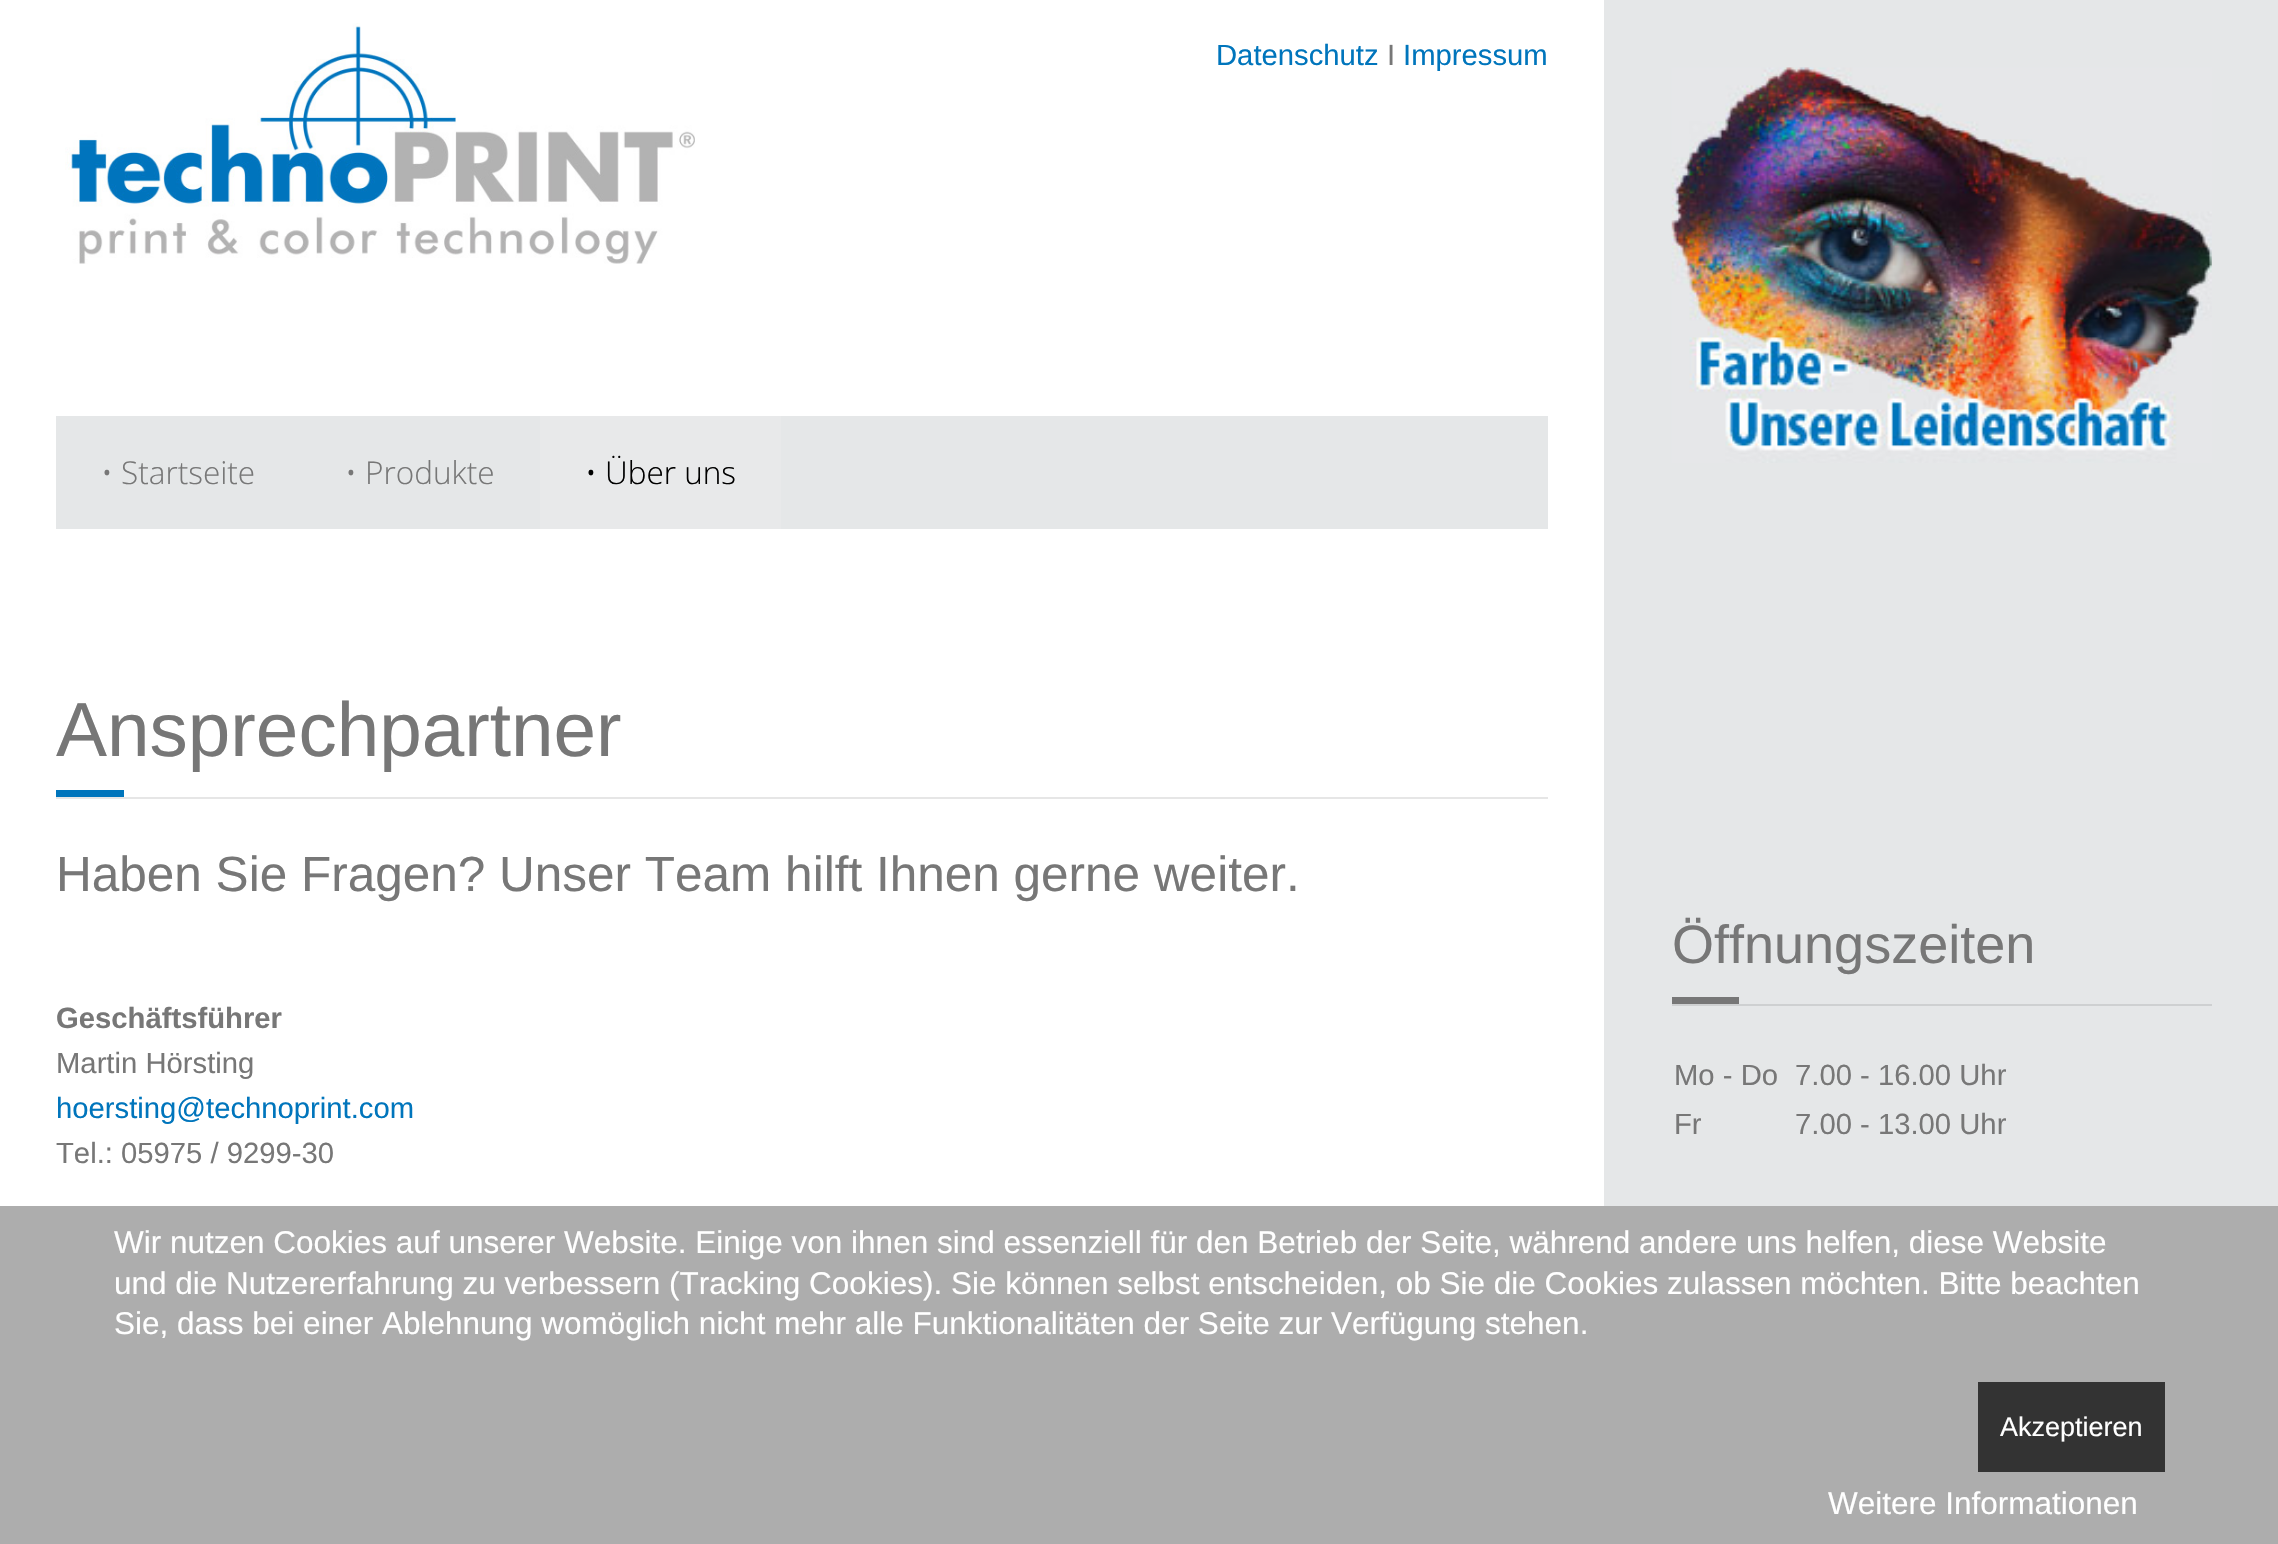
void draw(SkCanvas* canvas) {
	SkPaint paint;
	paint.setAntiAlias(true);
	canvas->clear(0xffffffff);
	canvas->drawImageRect(SkImages::DeferredFromEncodedData(SkData::MakeFromFileName("img1.png")), SkRect::MakeXYWH(65, 23, 630, 241), SkSamplingOptions());
	SkFont f1(fontMgr->matchFamilyStyle("Liberation Sans", SkFontStyle::Normal()), 29.25);
	f1.setSubpixel(true);
	paint.setColor(0xff0075bc);
	canvas->drawString("Datenschutz", 1216, 65, f1, paint);
	paint.setColor(0xff777777);
	canvas->drawString("I", 1387, 65, f1, paint);
	paint.setColor(0xff0075bc);
	canvas->drawString("Impressum", 1403, 65, f1, paint);
	paint.setColor(0xffe5e7e8);
	canvas->drawRect(SkRect::MakeXYWH(56, 416, 1492, 113), paint);
	SkFont f2(fontMgr->matchFamilyStyle("Open Sans", SkFontStyle(300, SkFontStyle::kNormal_Width, SkFontStyle::kUpright_Slant)), 31.5);
	f2.setSubpixel(true);
	paint.setColor(0xff777777);
	canvas->drawString("• Startseite", 101, 484, f2, paint);
	canvas->drawString("• Produkte", 345, 484, f2, paint);
	paint.setColor(0xffe8e9ea);
	canvas->drawRect(SkRect::MakeXYWH(540, 416, 241, 113), paint);
	paint.setColor(0xff000000);
	canvas->drawString("• Über uns", 585, 484, f2, paint);
	paint.setColor(0xffe6e6e6);
	canvas->drawRect(SkRect::MakeXYWH(56, 797, 1492, 2), paint);
	SkFont f3(fontMgr->matchFamilyStyle("Liberation Sans", SkFontStyle::Normal()), 76.5);
	f3.setSubpixel(true);
	paint.setColor(0xff777777);
	canvas->drawString("Ansprechpartner", 56, 756, f3, paint);
	paint.setColor(0xff0075bc);
	canvas->drawRect(SkRect::MakeXYWH(56, 790, 68, 7), paint);
	SkFont f4(fontMgr->matchFamilyStyle("Liberation Sans", SkFontStyle::Normal()), 49.5);
	f4.setSubpixel(true);
	paint.setColor(0xff777777);
	canvas->drawString("Haben Sie Fragen? Unser Team hilft Ihnen gerne weiter.", 56, 891, f4, paint);
	SkFont f5(fontMgr->matchFamilyStyle("Liberation Sans", SkFontStyle::Bold()), 29.25);
	f5.setSubpixel(true);
	canvas->drawString("Geschäftsführer", 56, 1028, f5, paint);
	canvas->drawString("Martin Hörsting", 56, 1073, f1, paint);
	paint.setColor(0xff0075bc);
	canvas->drawString("hoersting@technoprint.com", 56, 1118, f1, paint);
	paint.setColor(0xff777777);
	canvas->drawString("Tel.: 05975 / 9299-30", 56, 1163, f1, paint);
	paint.setColor(0xffe5e7e8);
	canvas->drawRect(SkRect::MakeXYWH(1604, 0, 674, 1206), paint);
	canvas->drawImageRect(SkImages::DeferredFromEncodedData(SkData::MakeFromFileName("img2.png")), SkRect::MakeXYWH(1671, 67, 541, 396), SkSamplingOptions());
	paint.setColor(0xffced0d1);
	canvas->drawRect(SkRect::MakeXYWH(1672, 1004, 540, 2), paint);
	SkFont f6(fontMgr->matchFamilyStyle("Liberation Sans", SkFontStyle::Normal()), 54);
	f6.setSubpixel(true);
	paint.setColor(0xff777777);
	canvas->drawString("Öffnungszeiten", 1672, 963, f6, paint);
	canvas->drawRect(SkRect::MakeXYWH(1672, 997, 67, 7), paint);
	canvas->drawString("Mo - Do", 1674, 1085, f1, paint);
	canvas->drawString("7.00 - 16.00 Uhr", 1795, 1085, f1, paint);
	canvas->drawString("Fr", 1674, 1134, f1, paint);
	canvas->drawString("7.00 - 13.00 Uhr", 1795, 1134, f1, paint);
	paint.setColor(0xffadadad);
	canvas->drawRect(SkRect::MakeXYWH(0, 1206, 2278, 338), paint);
	SkFont f7(fontMgr->matchFamilyStyle("Liberation Sans", SkFontStyle::Normal()), 31.5);
	f7.setSubpixel(true);
	paint.setColor(0xffffffff);
	canvas->drawString("Wir nutzen Cookies auf unserer Website. Einige von ihnen sind essenziell für den Betrieb der Seite, während andere uns helfen, diese Website", 114, 1253, f7, paint);
	canvas->drawString("und die Nutzererfahrung zu verbessern (Tracking Cookies). Sie können selbst entscheiden, ob Sie die Cookies zulassen möchten. Bitte beachten", 114, 1294, f7, paint);
	canvas->drawString("Sie, dass bei einer Ablehnung womöglich nicht mehr alle Funktionalitäten der Seite zur Verfügung stehen.", 114, 1334, f7, paint);
	paint.setColor(0xff333333);
	canvas->drawRect(SkRect::MakeXYWH(1978, 1382, 187, 90), paint);
	SkFont f8(fontMgr->matchFamilyStyle("Liberation Sans", SkFontStyle::Normal()), 27);
	f8.setSubpixel(true);
	paint.setColor(0xffffffff);
	canvas->drawString("Akzeptieren", 2000, 1436, f8, paint);
	canvas->drawString("Weitere Informationen", 1828, 1514, f7, paint);
}
